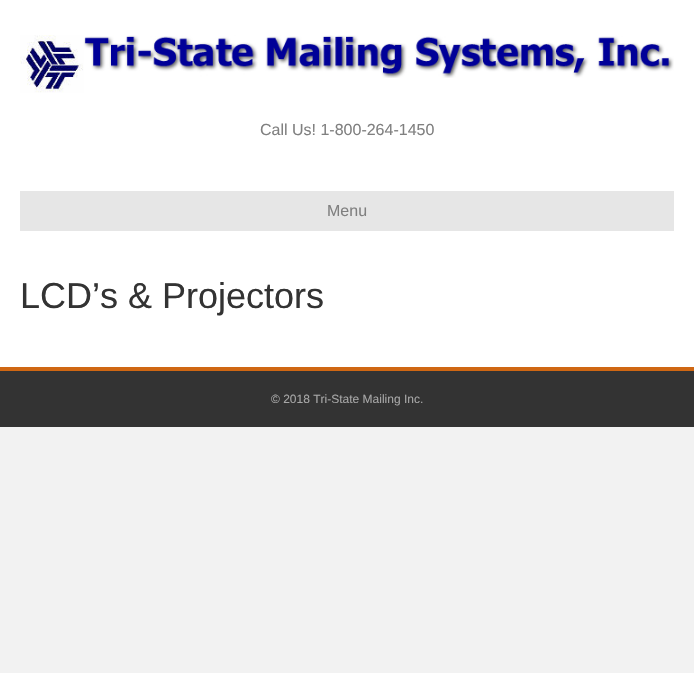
void draw(SkCanvas* canvas) {
	SkPaint paint;
	paint.setAntiAlias(true);
	canvas->clear(0xfff2f2f2);
	paint.setColor(0xffffffff);
	canvas->drawRect(SkRect::MakeXYWH(0, 0, 694, 367), paint);
	canvas->drawImageRect(SkImages::DeferredFromEncodedData(SkData::MakeFromFileName("img1.png")), SkRect::MakeXYWH(20, 35, 654, 58), SkSamplingOptions());
	SkFont f1(fontMgr->matchFamilyStyle("Liberation Sans", SkFontStyle::Normal()), 16);
	f1.setSubpixel(true);
	paint.setColor(0xff808080);
	canvas->drawString("Call Us! 1-800-264-1450", 260, 135, f1, paint);
	paint.setColor(0xffe6e6e6);
	canvas->drawRect(SkRect::MakeXYWH(20, 191, 654, 40), paint);
	paint.setColor(0xff808080);
	canvas->drawString("Menu", 327, 216, f1, paint);
	SkFont f2(fontMgr->matchFamilyStyle("Liberation Sans", SkFontStyle::Normal()), 36);
	f2.setSubpixel(true);
	paint.setColor(0xff333333);
	canvas->drawString("LCD’s & Projectors", 20, 308, f2, paint);
	canvas->drawRect(SkRect::MakeXYWH(0, 371, 694, 56), paint);
	paint.setColor(0xffcf6713);
	canvas->drawRect(SkRect::MakeXYWH(0, 367, 694, 4), paint);
	SkFont f3(fontMgr->matchFamilyStyle("Liberation Sans", SkFontStyle::Normal()), 12);
	f3.setSubpixel(true);
	paint.setColor(0xffa6a6a6);
	canvas->drawString("© 2018 Tri-State Mailing Inc.", 271, 403, f3, paint);
}
